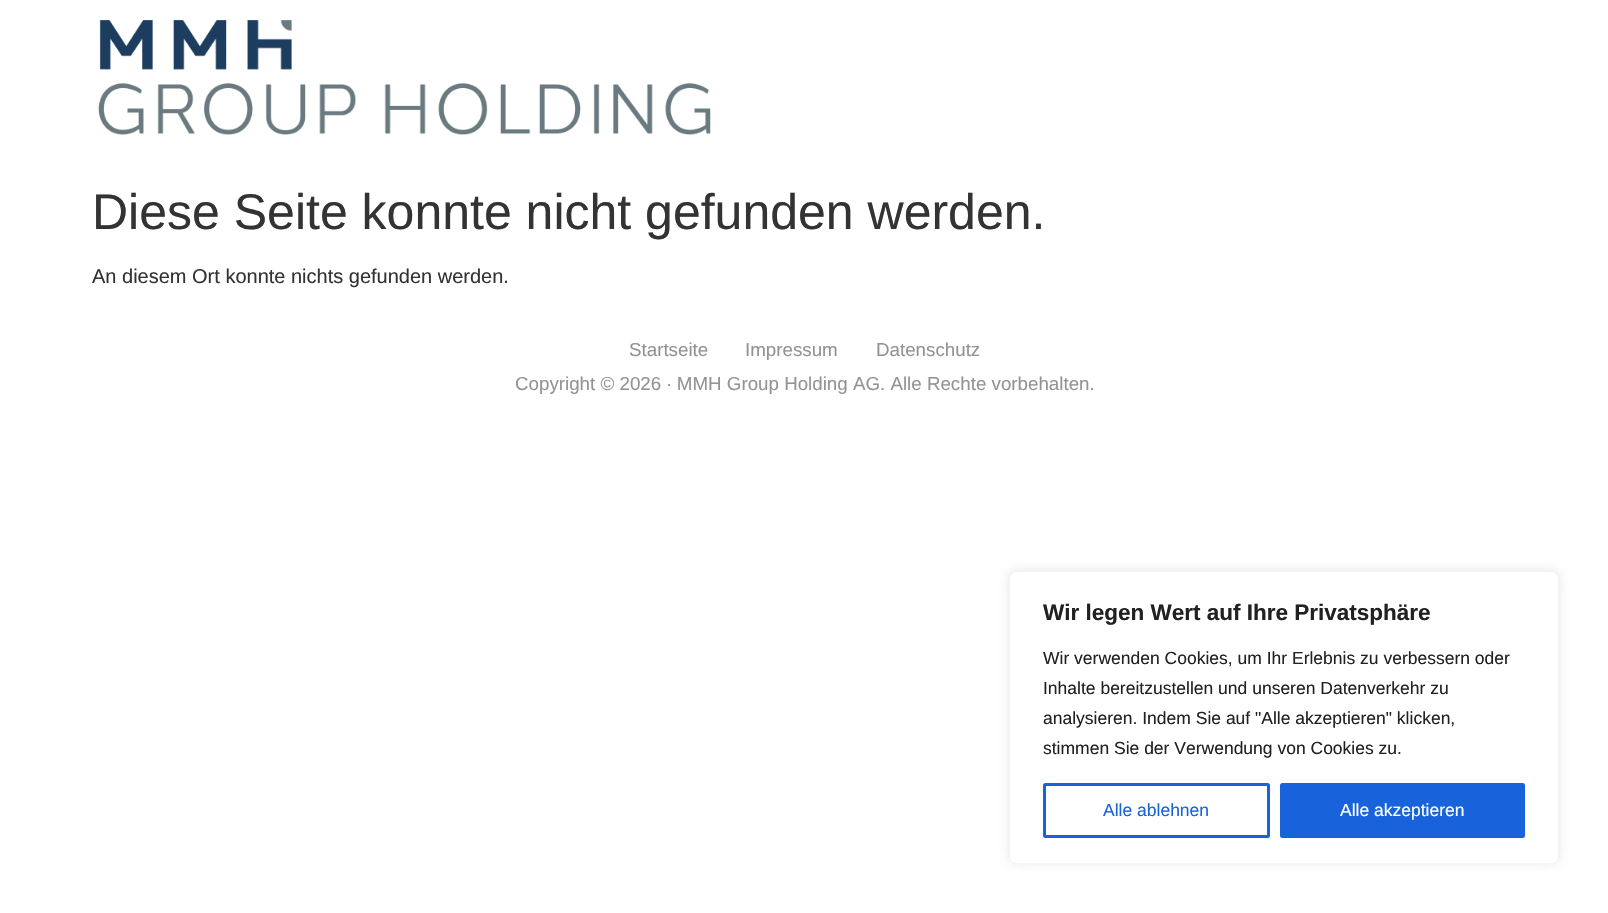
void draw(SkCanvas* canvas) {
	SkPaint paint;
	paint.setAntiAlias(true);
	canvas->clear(0xffffffff);
	canvas->drawImageRect(SkImages::DeferredFromEncodedData(SkData::MakeFromFileName("img1.png")), SkRect::MakeXYWH(98, 20, 613, 115), SkSamplingOptions());
	SkFont f1(fontMgr->matchFamilyStyle("Liberation Sans", SkFontStyle::Normal()), 50);
	f1.setSubpixel(true);
	paint.setColor(0xff333333);
	canvas->drawString("Diese Seite konnte nicht gefunden werden.", 92, 229, f1, paint);
	SkFont f2(fontMgr->matchFamilyStyle("Liberation Sans", SkFontStyle::Normal()), 20);
	f2.setSubpixel(true);
	canvas->drawString("An diesem Ort konnte nichts gefunden werden.", 92, 283, f2, paint);
	SkFont f3(fontMgr->matchFamilyStyle("Liberation Sans", SkFontStyle::Normal()), 18.75);
	f3.setSubpixel(true);
	paint.setColor(0xff939393);
	canvas->drawString("Startseite", 629, 356, f3, paint);
	canvas->drawString("Impressum", 745, 356, f3, paint);
	canvas->drawString("Datenschutz", 876, 356, f3, paint);
	canvas->drawString("Copyright © 2026 ∙ MMH Group Holding AG. Alle Rechte vorbehalten.", 515, 390, f3, paint);
	paint.setColor(0x4dacabab);
	paint.setMaskFilter(SkMaskFilter::MakeBlur(kNormal_SkBlurStyle, 6));
	canvas->drawRoundRect(SkRect::MakeXYWH(1009, 570, 550, 293), 8, 8, paint);
	paint.setMaskFilter(nullptr);
	paint.setColor(0xffffffff);
	canvas->drawRoundRect(SkRect::MakeXYWH(1009.5, 571.5, 549, 292), 7.5, 7.5, paint);
	paint.setStroke(true);
	paint.setStrokeWidth(1);
	paint.setColor(0xfff4f4f4);
	canvas->drawRoundRect(SkRect::MakeXYWH(1009.5, 571.5, 549, 292), 7.5, 7.5, paint);
	SkFont f4(fontMgr->matchFamilyStyle("Liberation Sans", SkFontStyle::Bold()), 22.5);
	f4.setSubpixel(true);
	paint.setStroke(false);
	paint.setColor(0xff212121);
	canvas->drawString("Wir legen Wert auf Ihre Privatsphäre", 1043, 620, f4, paint);
	SkFont f5(fontMgr->matchFamilyStyle("Liberation Sans", SkFontStyle::Normal()), 17.5);
	f5.setSubpixel(true);
	canvas->drawString("Wir verwenden Cookies, um Ihr Erlebnis zu verbessern oder", 1043, 664, f5, paint);
	canvas->drawString("Inhalte bereitzustellen und unseren Datenverkehr zu", 1043, 694, f5, paint);
	canvas->drawString("analysieren. Indem Sie auf \"Alle akzeptieren\" klicken,", 1043, 724, f5, paint);
	canvas->drawString("stimmen Sie der Verwendung von Cookies zu.", 1043, 754, f5, paint);
	paint.setStroke(true);
	paint.setStrokeWidth(3);
	paint.setColor(0xff1863dc);
	canvas->drawRoundRect(SkRect::MakeXYWH(1044.5, 784.5, 224, 52), 1, 1, paint);
	paint.setStroke(false);
	canvas->drawString("Alle ablehnen", 1103, 816, f5, paint);
	canvas->drawRoundRect(SkRect::MakeXYWH(1281.5, 784.5, 242, 52), 1, 1, paint);
	paint.setStroke(true);
	canvas->drawRoundRect(SkRect::MakeXYWH(1281.5, 784.5, 242, 52), 1, 1, paint);
	paint.setStroke(false);
	paint.setColor(0xffffffff);
	canvas->drawString("Alle akzeptieren", 1340, 816, f5, paint);
}
